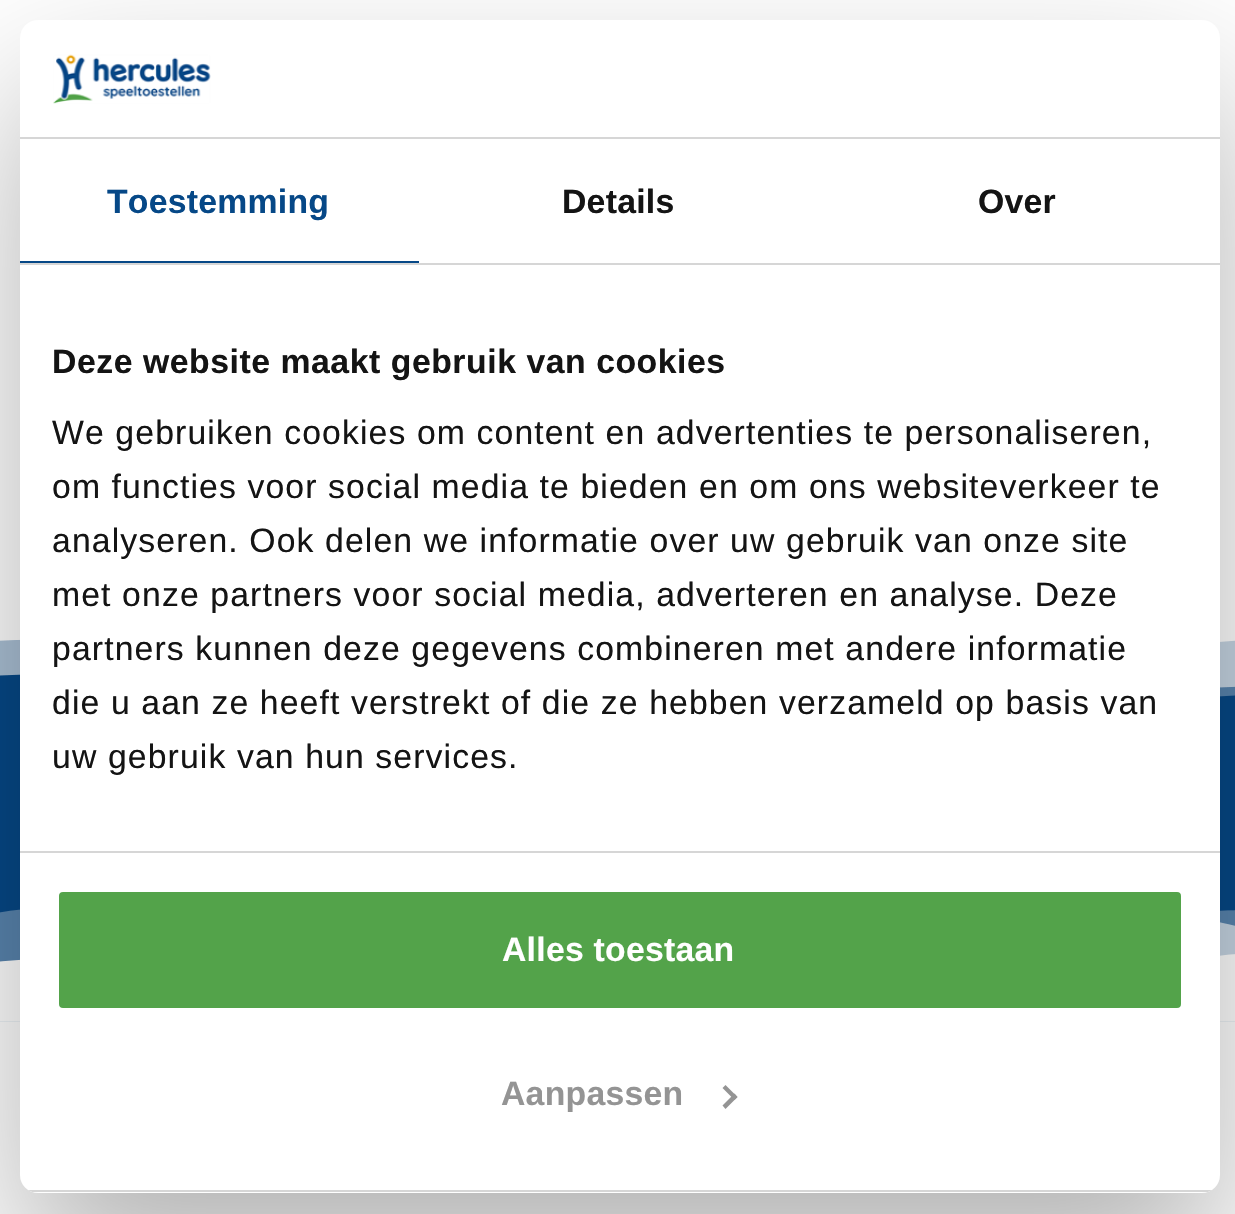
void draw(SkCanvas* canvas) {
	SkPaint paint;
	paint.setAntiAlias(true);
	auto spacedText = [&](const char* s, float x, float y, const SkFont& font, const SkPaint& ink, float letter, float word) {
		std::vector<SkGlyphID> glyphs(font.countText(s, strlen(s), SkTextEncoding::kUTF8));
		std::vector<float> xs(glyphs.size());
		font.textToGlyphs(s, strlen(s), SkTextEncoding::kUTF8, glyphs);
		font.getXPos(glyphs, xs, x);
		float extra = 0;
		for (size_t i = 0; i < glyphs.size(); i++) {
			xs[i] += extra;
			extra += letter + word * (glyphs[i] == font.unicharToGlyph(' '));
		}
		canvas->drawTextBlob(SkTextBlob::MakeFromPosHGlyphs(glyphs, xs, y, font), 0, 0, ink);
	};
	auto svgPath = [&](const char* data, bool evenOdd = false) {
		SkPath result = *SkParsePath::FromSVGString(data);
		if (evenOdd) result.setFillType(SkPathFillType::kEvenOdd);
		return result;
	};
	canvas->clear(0xffffffff);
	paint.setColor(0xff064887);
	canvas->drawRect(SkRect::MakeXYWH(0, 639, 1235, 383), paint);
	canvas->drawImageRect(SkImages::DeferredFromEncodedData(SkData::MakeFromFileName("img2.png")), SkRect::MakeXYWH(0, 630, 1235, 67), SkSamplingOptions());
	canvas->drawImageRect(SkImages::DeferredFromEncodedData(SkData::MakeFromFileName("img3.png")), SkRect::MakeXYWH(0, 909, 1235, 113), SkSamplingOptions());
	paint.setColor(0x4d000000);
	paint.setMaskFilter(SkMaskFilter::MakeBlur(kNormal_SkBlurStyle, 76.5));
	canvas->drawRoundRect(SkRect::MakeXYWH(20, 92, 1200, 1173), 18, 18, paint);
	paint.setMaskFilter(nullptr);
	paint.setColor(0xffffffff);
	canvas->drawRoundRect(SkRect::MakeXYWH(20, 20, 1200, 1173), 18, 18, paint);
	paint.setColor(0xffd6d6d6);
	canvas->drawRect(SkRect::MakeXYWH(20, 137, 1200, 2), paint);
	canvas->drawImageRect(SkImages::DeferredFromEncodedData(SkData::MakeFromFileName("img1.png")), SkRect::MakeXYWH(53, 54, 158, 50), SkSamplingOptions());
	canvas->drawRect(SkRect::MakeXYWH(20, 263, 1200, 2), paint);
	paint.setColor(0xff064887);
	canvas->drawRect(SkRect::MakeXYWH(20, 261, 399, 2), paint);
	SkFont f1(fontMgr->matchFamilyStyle("Liberation Sans", SkFontStyle::Bold()), 33.75);
	f1.setSubpixel(true);
	spacedText("Toestemming", 107, 213, f1, paint, 0.25, 0);
	paint.setColor(0xff141414);
	spacedText("Details", 562, 213, f1, paint, 0.25, 0);
	spacedText("Over", 978, 213, f1, paint, 0.25, 0);
	paint.setColor(0xffd6d6d6);
	canvas->drawRect(SkRect::MakeXYWH(20, 851, 1200, 2), paint);
	paint.setColor(0xff141414);
	spacedText("Deze website maakt gebruik van cookies", 52, 373, f1, paint, 0.55, 0);
	SkFont f2(fontMgr->matchFamilyStyle("Liberation Sans", SkFontStyle::Normal()), 33.75);
	f2.setSubpixel(true);
	spacedText("We gebruiken cookies om content en advertenties te personaliseren,", 52, 444, f2, paint, 1.12, 0);
	spacedText("om functies voor social media te bieden en om ons websiteverkeer te", 52, 498, f2, paint, 1.12, 0);
	spacedText("analyseren. Ook delen we informatie over uw gebruik van onze site", 52, 552, f2, paint, 1.12, 0);
	spacedText("met onze partners voor social media, adverteren en analyse. Deze", 52, 606, f2, paint, 1.12, 0);
	spacedText("partners kunnen deze gegevens combineren met andere informatie", 52, 660, f2, paint, 1.12, 0);
	spacedText("die u aan ze heeft verstrekt of die ze hebben verzameld op basis van", 52, 714, f2, paint, 1.12, 0);
	spacedText("uw gebruik van hun services.", 52, 768, f2, paint, 1.12, 0);
	canvas->save();
	canvas->clipPath(svgPath("M38 20H1202C1212 20 1220 28 1220 38V1175C1220 1185 1212 1193 1202 1193H38C28 1193 20 1185 20 1175V38C20 28 28 20 38 20Z"), true);
	paint.setColor(0xffd6d6d6);
	canvas->drawRect(SkRect::MakeXYWH(20, 1190, 1200, 2), paint);
	canvas->restore();
	paint.setColor(0xff53a34a);
	canvas->drawRoundRect(SkRect::MakeXYWH(56.5, 889.5, 1127, 121), 6.5, 6.5, paint);
	paint.setStroke(true);
	paint.setStrokeWidth(5);
	paint.setColor(0xffffffff);
	canvas->drawRoundRect(SkRect::MakeXYWH(56.5, 889.5, 1127, 121), 6.5, 6.5, paint);
	paint.setStroke(false);
	spacedText("Alles toestaan", 502, 961, f1, paint, 0.25, 0);
	paint.setColor(0xff949494);
	spacedText("Aanpassen", 501, 1105, f1, paint, 0.25, 0);
	canvas->drawPath(svgPath("M725.5 1085L737.5 1097L734.5 1100L722.5 1088Z"), paint);
	canvas->drawPath(svgPath("M734.5 1093.5L737.5 1097L725.5 1109L722.5 1105.5Z"), paint);
}
